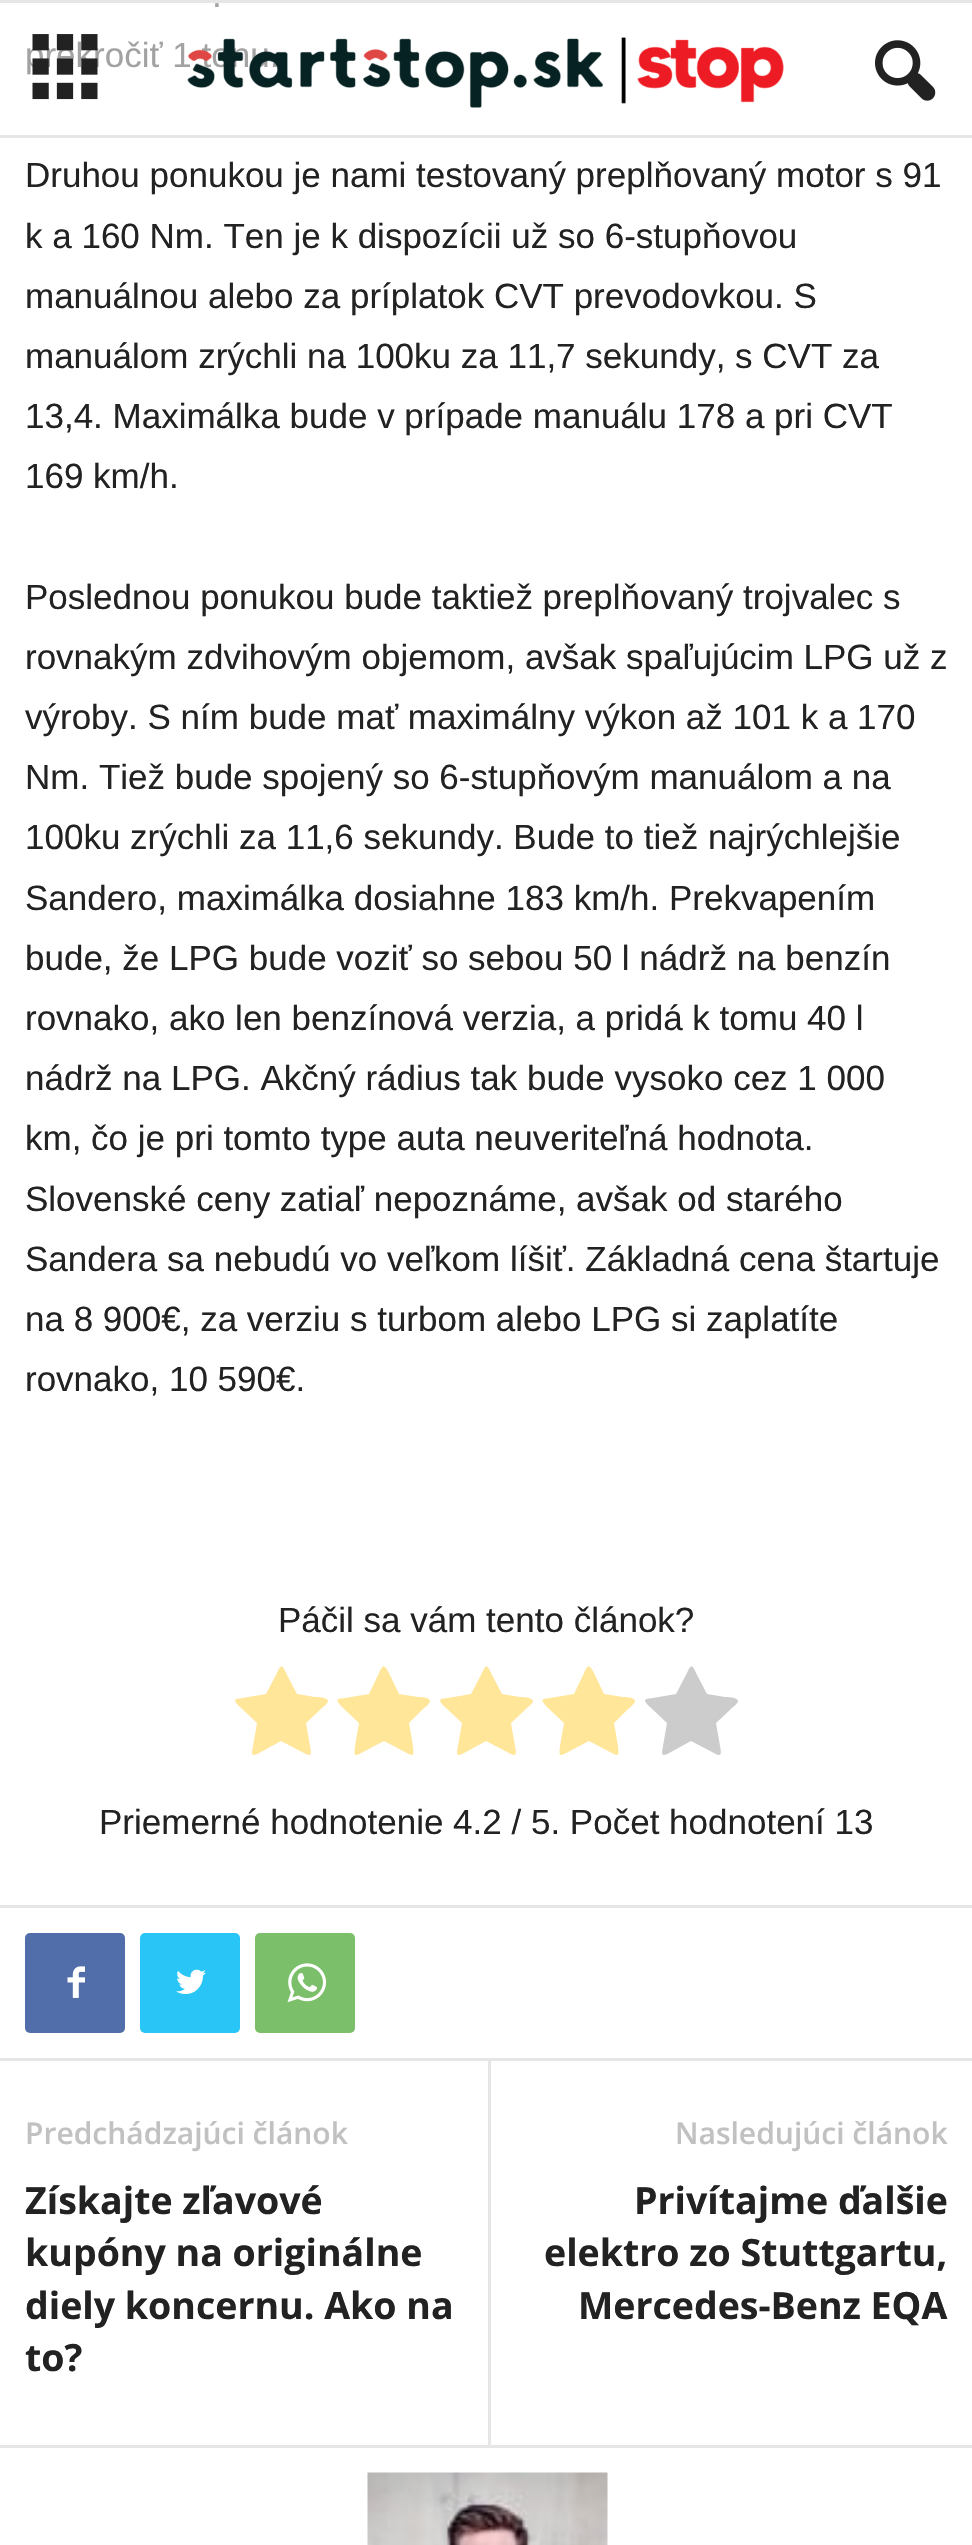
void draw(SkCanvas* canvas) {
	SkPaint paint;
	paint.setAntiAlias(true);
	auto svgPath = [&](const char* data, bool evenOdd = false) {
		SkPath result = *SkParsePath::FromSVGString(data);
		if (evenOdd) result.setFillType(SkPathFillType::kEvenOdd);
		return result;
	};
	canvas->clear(0xffffffff);
	paint.setColor(0xffe6e6e6);
	canvas->drawRect(SkRect::MakeXYWH(0, 0, 972, 3), paint);
	canvas->drawRect(SkRect::MakeXYWH(0, 135, 972, 3), paint);
	SkFont f1(fontMgr->matchFamilyStyle("Liberation Sans", SkFontStyle::Normal()), 35);
	f1.setSubpixel(true);
	paint.setColor(0xffa2a2a2);
	canvas->drawString("prekročiť 1 tonu.", 25, 67, f1, paint);
	canvas->drawImageRect(SkImages::DeferredFromEncodedData(SkData::MakeFromFileName("img1.png")), SkRect::MakeXYWH(32, 34, 66, 66), SkSamplingOptions());
	canvas->drawImageRect(SkImages::DeferredFromEncodedData(SkData::MakeFromFileName("img2.png")), SkRect::MakeXYWH(187, 37, 597, 71), SkSamplingOptions());
	canvas->drawImageRect(SkImages::DeferredFromEncodedData(SkData::MakeFromFileName("img3.png")), SkRect::MakeXYWH(875, 40, 61, 61), SkSamplingOptions());
	canvas->drawString(".", 212, 7, f1, paint);
	paint.setColor(0xff222222);
	canvas->drawString("Druhou ponukou je nami testovaný preplňovaný motor s 91", 25, 187, f1, paint);
	canvas->drawString("k a 160 Nm. Ten je k dispozícii už so 6-stupňovou", 25, 248, f1, paint);
	canvas->drawString("manuálnou alebo za príplatok CVT prevodovkou. S", 25, 308, f1, paint);
	canvas->drawString("manuálom zrýchli na 100ku za 11,7 sekundy, s CVT za", 25, 368, f1, paint);
	canvas->drawString("13,4. Maximálka bude v prípade manuálu 178 a pri CVT", 25, 428, f1, paint);
	canvas->drawString("169 km/h.", 25, 488, f1, paint);
	canvas->drawString("Poslednou ponukou bude taktiež preplňovaný trojvalec s", 25, 609, f1, paint);
	canvas->drawString("rovnakým zdvihovým objemom, avšak spaľujúcim LPG už z", 25, 669, f1, paint);
	canvas->drawString("výroby. S ním bude mať maximálny výkon až 101 k a 170", 25, 729, f1, paint);
	canvas->drawString("Nm. Tiež bude spojený so 6-stupňovým manuálom a na", 25, 789, f1, paint);
	canvas->drawString("100ku zrýchli za 11,6 sekundy. Bude to tiež najrýchlejšie", 25, 849, f1, paint);
	canvas->drawString("Sandero, maximálka dosiahne 183 km/h. Prekvapením", 25, 910, f1, paint);
	canvas->drawString("bude, že LPG bude voziť so sebou 50 l nádrž na benzín", 25, 970, f1, paint);
	canvas->drawString("rovnako, ako len benzínová verzia, a pridá k tomu 40 l", 25, 1030, f1, paint);
	canvas->drawString("nádrž na LPG. Akčný rádius tak bude vysoko cez 1 000", 25, 1090, f1, paint);
	canvas->drawString("km, čo je pri tomto type auta neuveriteľná hodnota.", 25, 1150, f1, paint);
	canvas->drawString("Slovenské ceny zatiaľ nepoznáme, avšak od starého", 25, 1211, f1, paint);
	canvas->drawString("Sandera sa nebudú vo veľkom líšiť. Základná cena štartuje", 25, 1271, f1, paint);
	canvas->drawString("na 8 900€, za verziu s turbom alebo LPG si zaplatíte", 25, 1331, f1, paint);
	canvas->drawString("rovnako, 10 590€.", 25, 1391, f1, paint);
	canvas->drawString("Páčil sa vám tento článok?", 278, 1632, f1, paint);
	paint.setColor(0xffffe699);
	canvas->drawPath(svgPath("M328 1701C328 1704 320 1709 320 1710L306 1723L310 1746C312 1756 311 1757 302 1752L281 1741L261 1752C252 1757 251 1756 253 1746L257 1723L240 1707C233 1700 233 1699 243 1698L266 1694L277 1673C281 1664 282 1664 286 1673L297 1694L315 1697C316 1697 328 1697 328 1701Z"), paint);
	canvas->drawPath(svgPath("M430 1701C430 1704 423 1709 422 1710L409 1723L413 1746C414 1756 414 1757 405 1752L384 1741L363 1752C354 1757 354 1756 355 1746L359 1723L342 1707C336 1700 335 1699 345 1698L369 1694L379 1673C383 1664 384 1664 389 1673L399 1694L418 1697C419 1697 430 1697 430 1701Z"), paint);
	canvas->drawPath(svgPath("M533 1701C533 1704 525 1709 525 1710L511 1723L515 1746C517 1756 516 1757 507 1752L486 1741L466 1752C457 1757 456 1756 458 1746L462 1723L445 1707C438 1700 438 1699 448 1698L471 1694L482 1673C486 1664 487 1664 491 1673L502 1694L520 1697C521 1697 533 1697 533 1701Z"), paint);
	canvas->drawPath(svgPath("M635 1701C635 1704 628 1709 627 1710L614 1723L618 1746C619 1756 619 1757 610 1752L589 1741L568 1752C559 1757 559 1756 560 1746L564 1723L547 1707C541 1700 540 1699 550 1698L574 1694L584 1673C588 1664 589 1664 594 1673L604 1694L623 1697C624 1697 635 1697 635 1701Z"), paint);
	paint.setColor(0xffcccccc);
	canvas->drawPath(svgPath("M738 1701C738 1704 730 1709 730 1710L716 1723L720 1746C722 1756 721 1757 712 1752L691 1741L671 1752C662 1757 661 1756 663 1746L667 1723L650 1707C643 1700 643 1699 653 1698L676 1694L687 1673C691 1664 692 1664 696 1673L707 1694L725 1697C726 1697 738 1697 738 1701Z"), paint);
	paint.setColor(0xff222222);
	canvas->drawString("Priemerné hodnotenie 4.2 / 5. Počet hodnotení 13", 99, 1834, f1, paint);
	paint.setColor(0xffe6e6e6);
	canvas->drawRect(SkRect::MakeXYWH(0, 1905, 972, 3), paint);
	paint.setColor(0xff516eab);
	canvas->drawRoundRect(SkRect::MakeXYWH(25, 1933, 100, 100), 5, 5, paint);
	canvas->drawImageRect(SkImages::DeferredFromEncodedData(SkData::MakeFromFileName("img4.png")), SkRect::MakeXYWH(67, 1966, 18, 32), SkSamplingOptions());
	paint.setColor(0xff29c5f6);
	canvas->drawRoundRect(SkRect::MakeXYWH(140, 1933, 100, 100), 5, 5, paint);
	canvas->drawImageRect(SkImages::DeferredFromEncodedData(SkData::MakeFromFileName("img5.png")), SkRect::MakeXYWH(176, 1969, 30, 26), SkSamplingOptions());
	paint.setColor(0xff7bbf6a);
	canvas->drawRoundRect(SkRect::MakeXYWH(255, 1933, 100, 100), 5, 5, paint);
	canvas->drawImageRect(SkImages::DeferredFromEncodedData(SkData::MakeFromFileName("img6.png")), SkRect::MakeXYWH(287, 1963, 40, 40), SkSamplingOptions());
	paint.setColor(0xffe6e6e6);
	canvas->drawRect(SkRect::MakeXYWH(0, 2058, 972, 3), paint);
	SkFont f2(fontMgr->matchFamilyStyle("Open Sans", SkFontStyle(600, SkFontStyle::kNormal_Width, SkFontStyle::kUpright_Slant)), 30);
	f2.setSubpixel(true);
	paint.setColor(0xffc1c1c1);
	canvas->drawString("Predchádzajúci článok", 25, 2144, f2, paint);
	SkFont f3(fontMgr->matchFamilyStyle("Open Sans", SkFontStyle::Bold()), 37.5);
	f3.setSubpixel(true);
	paint.setColor(0xff222222);
	canvas->drawString("Získajte zľavové", 25, 2214, f3, paint);
	canvas->drawString("kupóny na originálne", 25, 2266, f3, paint);
	canvas->drawString("diely koncernu. Ako na", 25, 2319, f3, paint);
	canvas->drawString("to?", 25, 2371, f3, paint);
	paint.setColor(0xffe6e6e6);
	canvas->drawRect(SkRect::MakeXYWH(488, 2060, 3, 385), paint);
	paint.setColor(0xffc1c1c1);
	canvas->drawString("Nasledujúci článok", 675, 2144, f2, paint);
	paint.setColor(0xff222222);
	canvas->drawString("Privítajme ďalšie", 634, 2214, f3, paint);
	canvas->drawString("elektro zo Stuttgartu,", 544, 2266, f3, paint);
	canvas->drawString("Mercedes-Benz EQA", 578, 2319, f3, paint);
	paint.setColor(0xffe6e6e6);
	canvas->drawRect(SkRect::MakeXYWH(0, 2445, 972, 3), paint);
	canvas->drawImageRect(SkImages::DeferredFromEncodedData(SkData::MakeFromFileName("img7.png")), SkRect::MakeXYWH(367, 2472, 241, 73), SkSamplingOptions());
}
